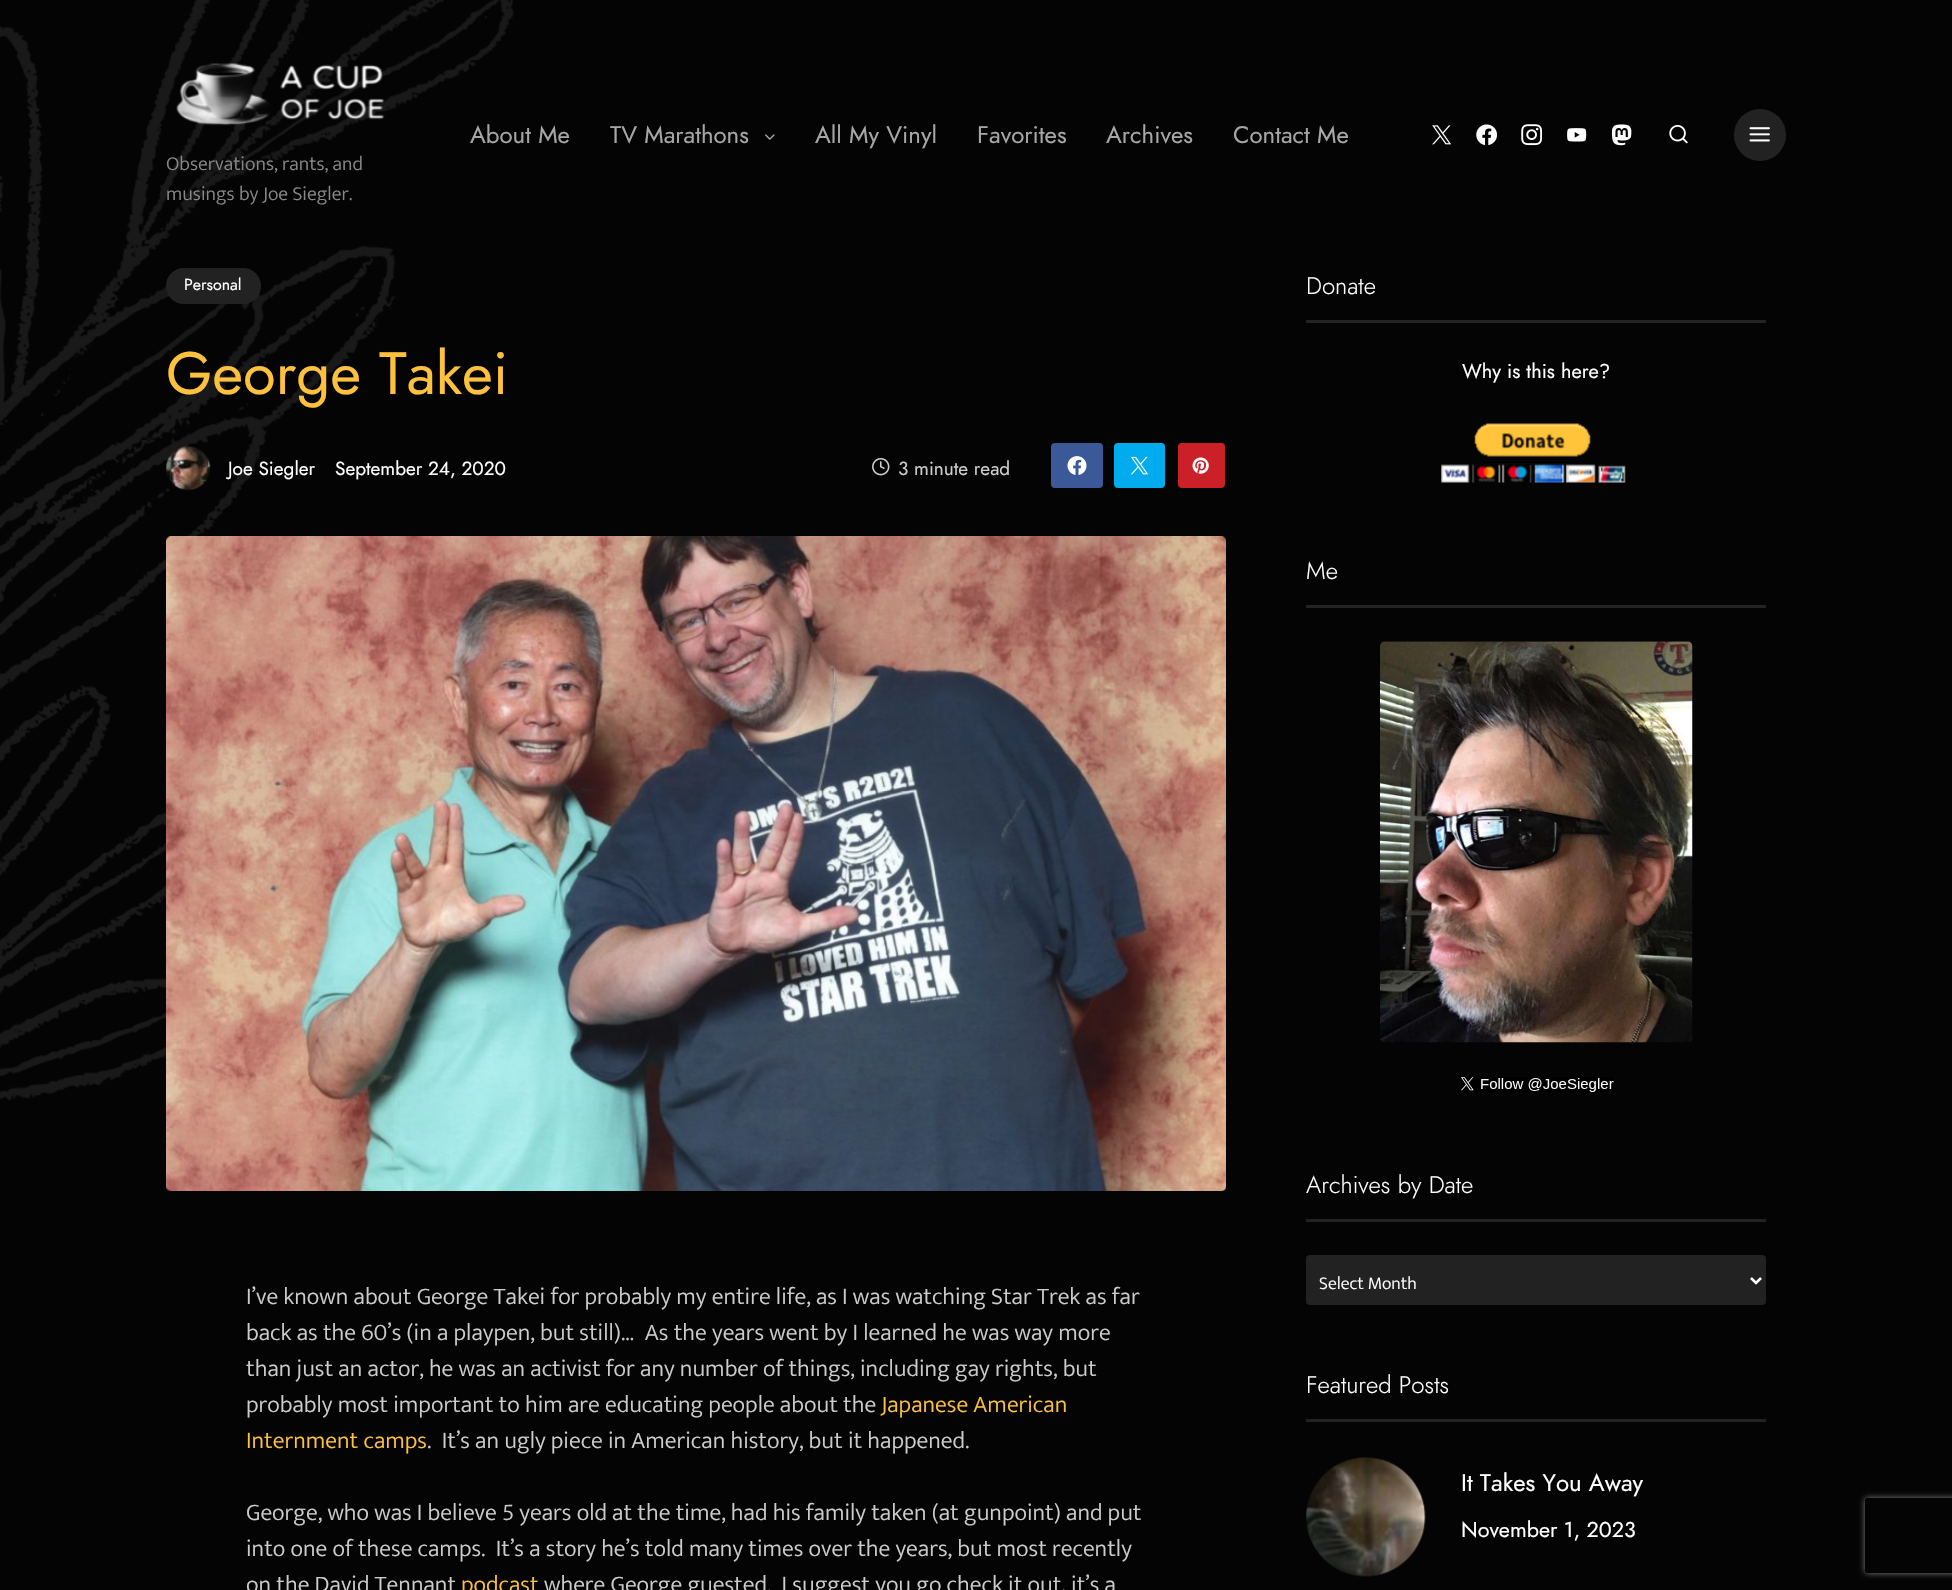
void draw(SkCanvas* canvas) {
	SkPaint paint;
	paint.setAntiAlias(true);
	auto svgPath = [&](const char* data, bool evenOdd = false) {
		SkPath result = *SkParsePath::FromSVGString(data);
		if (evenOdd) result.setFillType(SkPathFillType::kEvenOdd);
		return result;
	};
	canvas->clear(0xff040404);
	canvas->drawImageRect(SkImages::DeferredFromEncodedData(SkData::MakeFromFileName("img1.png")), SkRect::MakeXYWH(0, 0, 514, 1100), SkSamplingOptions());
	SkFont f1(fontMgr->matchFamilyStyle("Jost", SkFontStyle::Normal()), 24);
	f1.setSubpixel(true);
	paint.setColor(0xffa6a6a6);
	canvas->drawString("About Me", 470, 143, f1, paint);
	canvas->drawString("TV Marathons", 610, 143, f1, paint);
	canvas->drawImageRect(SkImages::DeferredFromEncodedData(SkData::MakeFromFileName("img2.png")), SkRect::MakeXYWH(765, 134, 10, 6), SkSamplingOptions());
	canvas->drawString("All My Vinyl", 815, 143, f1, paint);
	canvas->drawString("Favorites", 977, 143, f1, paint);
	canvas->drawString("Archives", 1106, 143, f1, paint);
	canvas->drawString("Contact Me", 1233, 143, f1, paint);
	canvas->drawImageRect(SkImages::DeferredFromEncodedData(SkData::MakeFromFileName("img3.png")), SkRect::MakeXYWH(1432, 125, 19, 20), SkSamplingOptions());
	canvas->drawImageRect(SkImages::DeferredFromEncodedData(SkData::MakeFromFileName("img4.png")), SkRect::MakeXYWH(1476, 124, 21, 22), SkSamplingOptions());
	canvas->drawImageRect(SkImages::DeferredFromEncodedData(SkData::MakeFromFileName("img5.png")), SkRect::MakeXYWH(1521, 124, 22, 22), SkSamplingOptions());
	canvas->drawImageRect(SkImages::DeferredFromEncodedData(SkData::MakeFromFileName("img6.png")), SkRect::MakeXYWH(1567, 128, 20, 14), SkSamplingOptions());
	canvas->drawImageRect(SkImages::DeferredFromEncodedData(SkData::MakeFromFileName("img7.png")), SkRect::MakeXYWH(1611, 124, 21, 22), SkSamplingOptions());
	canvas->drawImageRect(SkImages::DeferredFromEncodedData(SkData::MakeFromFileName("img8.png")), SkRect::MakeXYWH(1669, 125, 19, 19), SkSamplingOptions());
	paint.setColor(0xff222222);
	canvas->drawCircle(1760, 135, 26, paint);
	canvas->drawImageRect(SkImages::DeferredFromEncodedData(SkData::MakeFromFileName("img9.png")), SkRect::MakeXYWH(1749, 127, 21, 15), SkSamplingOptions());
	canvas->drawImageRect(SkImages::DeferredFromEncodedData(SkData::MakeFromFileName("img10.png")), SkRect::MakeXYWH(176, 63, 209, 63), SkSamplingOptions());
	SkFont f2(fontMgr->matchFamilyStyle("Mukta", SkFontStyle(300, SkFontStyle::kNormal_Width, SkFontStyle::kUpright_Slant)), 20);
	f2.setSubpixel(true);
	paint.setColor(0xff888888);
	canvas->drawString("Observations, rants, and", 166, 170, f2, paint);
	canvas->drawString("musings by Joe Siegler.", 166, 200, f2, paint);
	paint.setColor(0xff222222);
	canvas->drawRoundRect(SkRect::MakeXYWH(166, 268, 95, 36), 18, 18, paint);
	SkFont f3(fontMgr->matchFamilyStyle("Jost", SkFontStyle::Normal()), 16);
	f3.setSubpixel(true);
	paint.setColor(0xffffffff);
	canvas->drawString("Personal", 184, 290, f3, paint);
	SkFont f4(fontMgr->matchFamilyStyle("Jost", SkFontStyle::Normal()), 59.75);
	f4.setSubpixel(true);
	paint.setColor(0xfffdc13d);
	canvas->drawString("George Takei", 166, 394, f4, paint);
	canvas->drawImageRect(SkImages::DeferredFromEncodedData(SkData::MakeFromFileName("img11.png")), SkRect::MakeXYWH(166, 446, 45, 45), SkSamplingOptions());
	SkFont f5(fontMgr->matchFamilyStyle("Jost", SkFontStyle::Normal()), 19);
	f5.setSubpixel(true);
	paint.setColor(0xffffffff);
	canvas->drawString("Joe Siegler", 228, 475, f5, paint);
	canvas->drawString("September 24, 2020", 335, 475, f5, paint);
	canvas->drawImageRect(SkImages::DeferredFromEncodedData(SkData::MakeFromFileName("img12.png")), SkRect::MakeXYWH(872, 458, 18, 18), SkSamplingOptions());
	paint.setColor(0xffcccccc);
	canvas->drawString("3 minute read", 898, 475, f5, paint);
	paint.setColor(0xff3b5998);
	canvas->drawRoundRect(SkRect::MakeXYWH(1051, 443, 52, 45), 4, 4, paint);
	canvas->drawImageRect(SkImages::DeferredFromEncodedData(SkData::MakeFromFileName("img13.png")), SkRect::MakeXYWH(1067, 456, 20, 19), SkSamplingOptions());
	paint.setColor(0xff00aced);
	canvas->drawRoundRect(SkRect::MakeXYWH(1114, 443, 51, 45), 4, 4, paint);
	canvas->drawImageRect(SkImages::DeferredFromEncodedData(SkData::MakeFromFileName("img14.png")), SkRect::MakeXYWH(1130, 456, 19, 19), SkSamplingOptions());
	paint.setColor(0xffcb2027);
	canvas->drawRoundRect(SkRect::MakeXYWH(1178, 443, 47, 45), 4, 4, paint);
	canvas->drawImageRect(SkImages::DeferredFromEncodedData(SkData::MakeFromFileName("img15.png")), SkRect::MakeXYWH(1192, 457, 17, 17), SkSamplingOptions());
	canvas->drawImageRect(SkImages::DeferredFromEncodedData(SkData::MakeFromFileName("img16.png")), SkRect::MakeXYWH(166, 536, 1060, 655), SkSamplingOptions());
	SkFont f6(fontMgr->matchFamilyStyle("Mukta", SkFontStyle(300, SkFontStyle::kNormal_Width, SkFontStyle::kUpright_Slant)), 24);
	f6.setSubpixel(true);
	paint.setColor(0xffcccccc);
	canvas->drawString("I’ve known about George Takei for probably my entire life, as I was watching Star Trek as far", 246, 1304, f6, paint);
	canvas->drawString("back as the 60’s (in a playpen, but still)…  As the years went by I learned he was way more", 246, 1340, f6, paint);
	canvas->drawString("than just an actor, he was an activist for any number of things, including gay rights, but", 246, 1376, f6, paint);
	canvas->drawString("probably most important to him are educating people about the", 246, 1412, f6, paint);
	paint.setColor(0xfffdc13d);
	canvas->drawString("Japanese American", 881, 1412, f6, paint);
	canvas->drawString("Internment camps", 246, 1448, f6, paint);
	paint.setColor(0xffcccccc);
	canvas->drawString(".  It’s an ugly piece in American history, but it happened.", 427, 1448, f6, paint);
	canvas->drawString("George, who was I believe 5 years old at the time, had his family taken (at gunpoint) and put", 246, 1520, f6, paint);
	canvas->drawString("into one of these camps.  It’s a story he’s told many times over the years, but most recently", 246, 1556, f6, paint);
	canvas->drawString("on the David Tennant", 246, 1592, f6, paint);
	paint.setColor(0xfffdc13d);
	canvas->drawString("podcast", 461, 1592, f6, paint);
	paint.setColor(0xffcccccc);
	canvas->drawString("where George guested.  I suggest you go check it out, it’s a", 544, 1592, f6, paint);
	paint.setColor(0xff232323);
	canvas->drawRect(SkRect::MakeXYWH(1306, 320, 460, 3), paint);
	SkFont f7(fontMgr->matchFamilyStyle("Jost", SkFontStyle(300, SkFontStyle::kNormal_Width, SkFontStyle::kUpright_Slant)), 24);
	f7.setSubpixel(true);
	paint.setColor(0xffffffff);
	canvas->drawString("Donate", 1306, 294, f7, paint);
	SkFont f8(fontMgr->matchFamilyStyle("Jost", SkFontStyle::Normal()), 20);
	f8.setSubpixel(true);
	canvas->drawString("Why is this here?", 1462, 378, f8, paint);
	canvas->drawImageRect(SkImages::DeferredFromEncodedData(SkData::MakeFromFileName("img17.png")), SkRect::MakeXYWH(1441, 423, 185, 60), SkSamplingOptions());
	paint.setColor(0xff232323);
	canvas->drawRect(SkRect::MakeXYWH(1306, 605, 460, 3), paint);
	paint.setColor(0xffffffff);
	canvas->drawString("Me", 1306, 579, f7, paint);
	canvas->drawImageRect(SkImages::DeferredFromEncodedData(SkData::MakeFromFileName("img18.png")), SkRect::MakeXYWH(1380, 641, 313, 402), SkSamplingOptions());
	canvas->drawImageRect(SkImages::DeferredFromEncodedData(SkData::MakeFromFileName("img19.png")), SkRect::MakeXYWH(1461, 1077, 153, 15), SkSamplingOptions());
	paint.setColor(0xff232323);
	canvas->drawRect(SkRect::MakeXYWH(1306, 1219, 460, 3), paint);
	paint.setColor(0xffffffff);
	canvas->drawString("Archives by Date", 1306, 1193, f7, paint);
	paint.setColor(0xff222222);
	canvas->drawRoundRect(SkRect::MakeXYWH(1306, 1255, 460, 50), 4, 4, paint);
	paint.setStroke(true);
	paint.setStrokeWidth(2.5);
	paint.setColor(0xffffffff);
	canvas->drawPath(svgPath("M1751 1278L1756 1283L1761 1278"), paint);
	SkFont f9(fontMgr->matchFamilyStyle("Mukta", SkFontStyle(300, SkFontStyle::kNormal_Width, SkFontStyle::kUpright_Slant)), 18);
	f9.setSubpixel(true);
	paint.setStroke(false);
	canvas->drawString("Select Month", 1319, 1289, f9, paint);
	paint.setColor(0xff232323);
	canvas->drawRect(SkRect::MakeXYWH(1306, 1419, 460, 3), paint);
	paint.setColor(0xffffffff);
	canvas->drawString("Featured Posts", 1306, 1393, f7, paint);
	canvas->drawImageRect(SkImages::DeferredFromEncodedData(SkData::MakeFromFileName("img20.png")), SkRect::MakeXYWH(1306, 1457, 120, 120), SkSamplingOptions());
	canvas->drawString("It Takes You Away", 1461, 1491, f1, paint);
	SkFont f10(fontMgr->matchFamilyStyle("Jost", SkFontStyle::Normal()), 21.5);
	f10.setSubpixel(true);
	canvas->drawString("November 1, 2023", 1461, 1537, f10, paint);
	canvas->save();
	canvas->clipPath(svgPath("M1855 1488H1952V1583H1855ZM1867.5 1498H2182.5C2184 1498 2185 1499 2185 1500.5V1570.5C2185 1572 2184 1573 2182.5 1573H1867.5C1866 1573 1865 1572 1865 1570.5V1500.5C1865 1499 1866 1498 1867.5 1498Z", true), true);
	paint.setColor(0xff808080);
	paint.setMaskFilter(SkMaskFilter::MakeBlur(kNormal_SkBlurStyle, 3));
	canvas->drawRoundRect(SkRect::MakeXYWH(1865, 1498, 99, 75), 2.5, 2.5, paint);
	paint.setMaskFilter(nullptr);
	canvas->restore();
}
